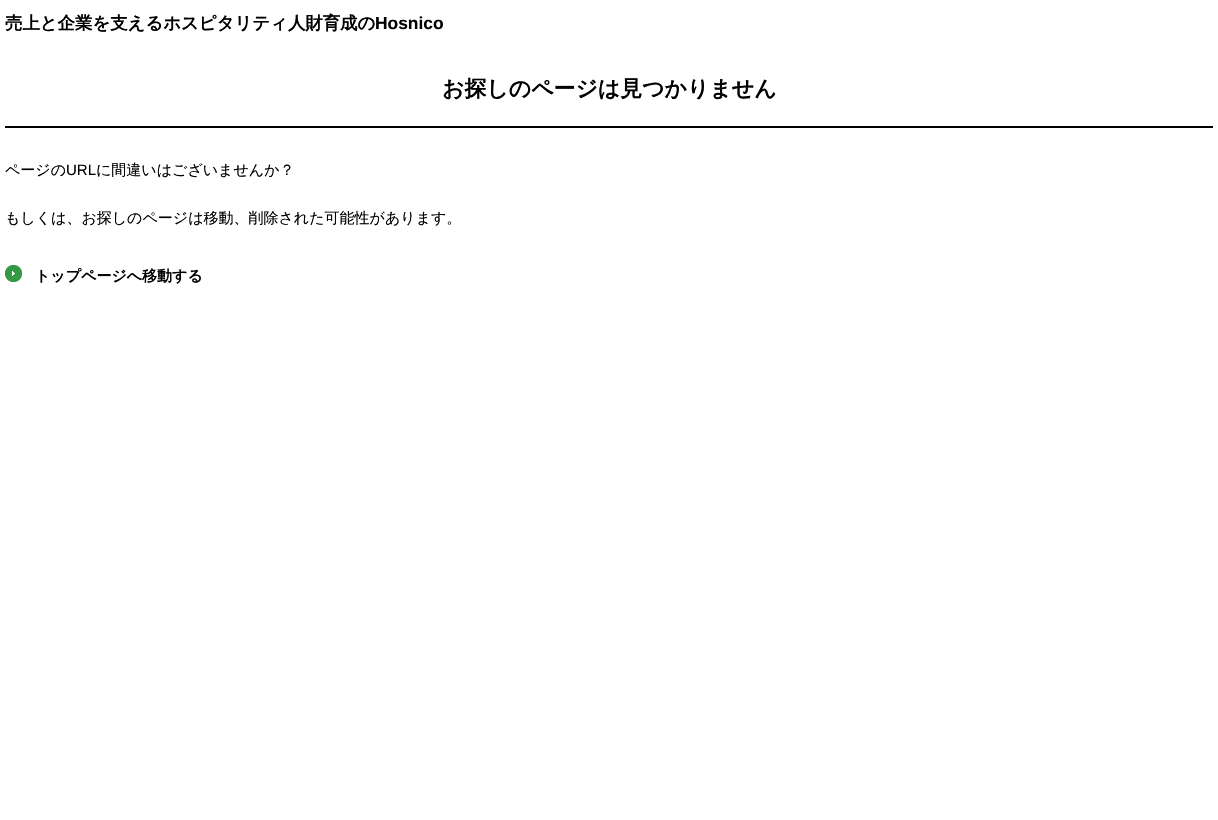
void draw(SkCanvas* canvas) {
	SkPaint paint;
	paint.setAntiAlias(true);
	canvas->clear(0xffffffff);
	SkFont f1(fontMgr->matchFamilyStyle("WenQuanYi Zen Hei", SkFontStyle::Bold()), 17.4);
	f1.setSubpixel(true);
	paint.setColor(0xff000000);
	canvas->drawString("売上と企業を支えるホスピタリティ人財育成の", 5, 29, f1, paint);
	SkFont f2(fontMgr->matchFamilyStyle("Liberation Sans", SkFontStyle::Bold()), 17.4);
	f2.setSubpixel(true);
	canvas->drawString("Hosnico", 375, 29, f2, paint);
	canvas->drawRect(SkRect::MakeXYWH(5, 126, 1208, 2), paint);
	SkFont f3(fontMgr->matchFamilyStyle("WenQuanYi Zen Hei", SkFontStyle::Bold()), 21.9);
	f3.setSubpixel(true);
	canvas->drawString("お探しのページは見つかりません", 442, 96, f3, paint);
	SkFont f4(fontMgr->matchFamilyStyle("WenQuanYi Zen Hei", SkFontStyle(500, SkFontStyle::kNormal_Width, SkFontStyle::kUpright_Slant)), 15);
	f4.setSubpixel(true);
	canvas->drawString("ページの", 5, 175, f4, paint);
	SkFont f5(fontMgr->matchFamilyStyle("Liberation Sans", SkFontStyle::Normal()), 15);
	f5.setSubpixel(true);
	canvas->drawString("URL", 66, 175, f5, paint);
	canvas->drawString("に間違いはございませんか？", 96, 175, f4, paint);
	canvas->drawString("もしくは、お探しのページは移動、削除された可能性があります。", 5, 223, f4, paint);
	canvas->drawImageRect(SkImages::DeferredFromEncodedData(SkData::MakeFromFileName("img1.png")), SkRect::MakeXYWH(5, 265, 17, 17), SkSamplingOptions());
	SkFont f6(fontMgr->matchFamilyStyle("WenQuanYi Zen Hei", SkFontStyle::Bold()), 15);
	f6.setSubpixel(true);
	canvas->drawString("トップページへ移動する", 35, 281, f6, paint);
}
